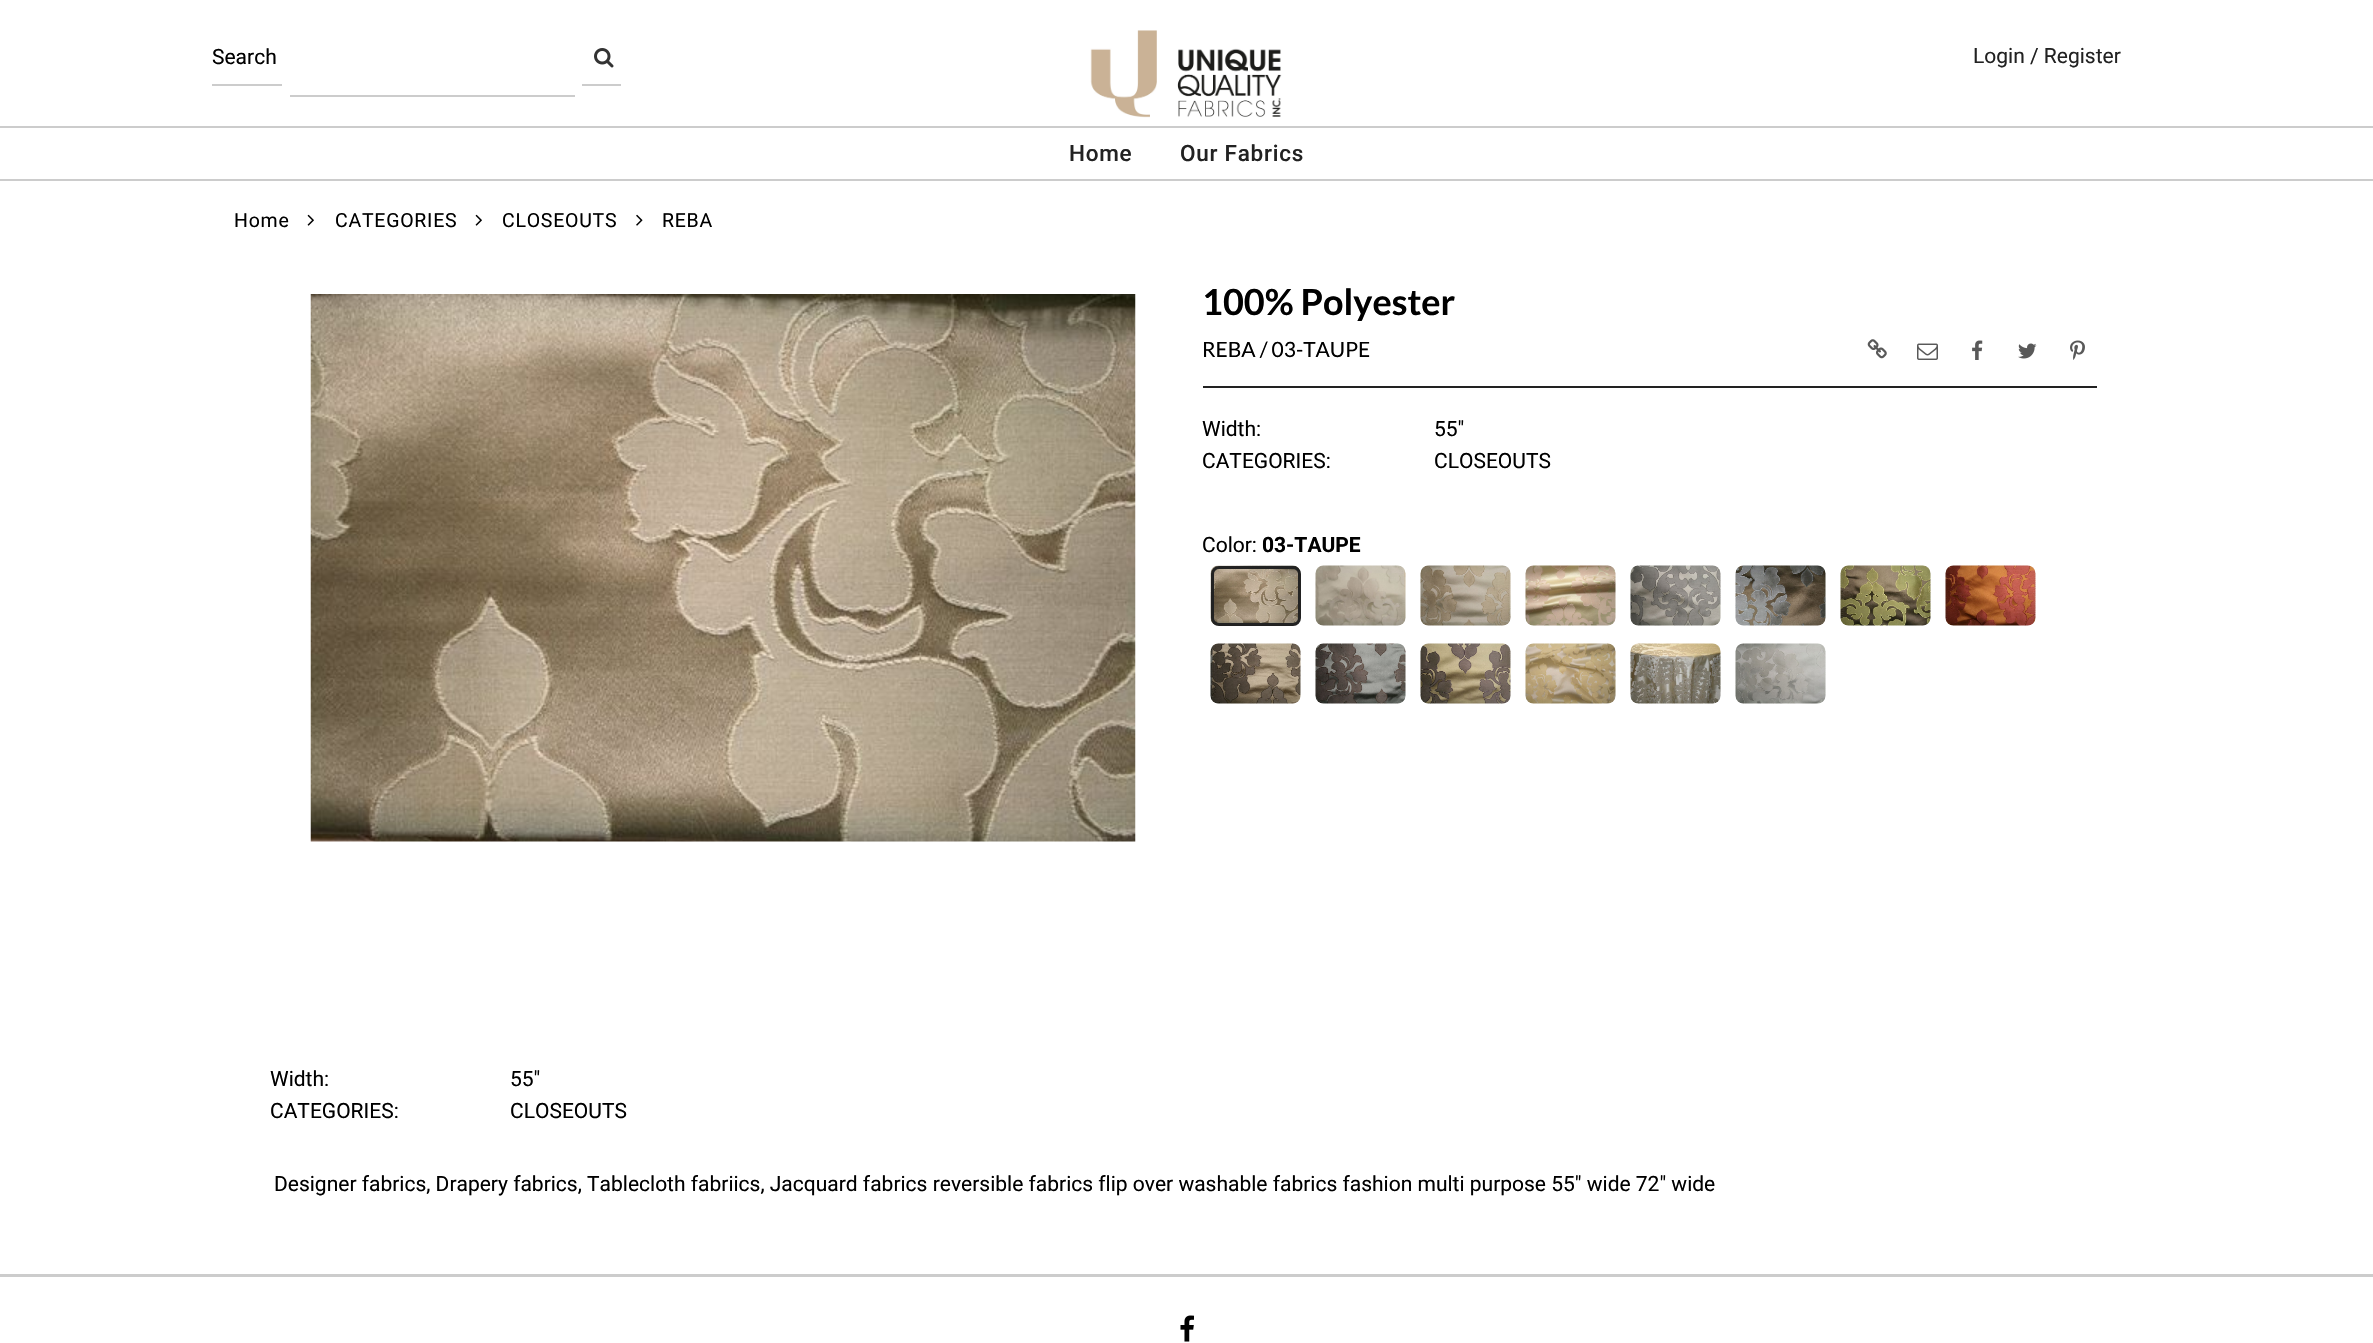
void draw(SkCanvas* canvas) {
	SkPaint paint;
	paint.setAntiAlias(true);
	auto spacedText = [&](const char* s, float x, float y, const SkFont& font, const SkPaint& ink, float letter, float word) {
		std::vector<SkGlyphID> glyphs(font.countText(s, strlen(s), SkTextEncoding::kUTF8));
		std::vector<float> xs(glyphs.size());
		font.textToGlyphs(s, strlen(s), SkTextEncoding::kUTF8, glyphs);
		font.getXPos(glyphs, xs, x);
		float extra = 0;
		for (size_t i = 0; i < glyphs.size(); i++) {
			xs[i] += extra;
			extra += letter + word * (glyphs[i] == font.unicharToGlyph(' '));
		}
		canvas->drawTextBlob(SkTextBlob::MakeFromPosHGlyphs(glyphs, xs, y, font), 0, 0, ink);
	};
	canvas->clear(0xffffffff);
	SkFont f1(fontMgr->matchFamilyStyle("Roboto", SkFontStyle::Normal()), 21);
	f1.setSubpixel(true);
	paint.setColor(0xff000000);
	canvas->drawString("Search", 212, 64, f1, paint);
	paint.setColor(0xffcccccc);
	canvas->drawRect(SkRect::MakeXYWH(212, 84, 70, 2), paint);
	canvas->drawImageRect(SkImages::DeferredFromEncodedData(SkData::MakeFromFileName("img1.png")), SkRect::MakeXYWH(594, 48, 20, 20), SkSamplingOptions());
	canvas->drawRect(SkRect::MakeXYWH(582, 84, 39, 2), paint);
	canvas->drawRect(SkRect::MakeXYWH(290, 95, 285, 2), paint);
	canvas->drawImageRect(SkImages::DeferredFromEncodedData(SkData::MakeFromFileName("img2.png")), SkRect::MakeXYWH(1090, 30, 192, 88), SkSamplingOptions());
	paint.setColor(0xff222222);
	canvas->drawString("Login / Register", 1973, 63, f1, paint);
	paint.setColor(0xffcccccc);
	canvas->drawRect(SkRect::MakeXYWH(0, 126, 2373, 2), paint);
	canvas->drawRect(SkRect::MakeXYWH(0, 179, 2373, 2), paint);
	SkFont f2(fontMgr->matchFamilyStyle("Roboto", SkFontStyle(500, SkFontStyle::kNormal_Width, SkFontStyle::kUpright_Slant)), 22.5);
	f2.setSubpixel(true);
	paint.setColor(0xff222222);
	spacedText("Home", 1069, 161, f2, paint, 0.75, 0);
	spacedText("Our Fabrics", 1180, 161, f2, paint, 0.75, 0);
	SkFont f3(fontMgr->matchFamilyStyle("Roboto", SkFontStyle::Normal()), 19.5);
	f3.setSubpixel(true);
	paint.setColor(0xff000000);
	spacedText("Home", 234, 227, f3, paint, 0.75, 0);
	canvas->drawImageRect(SkImages::DeferredFromEncodedData(SkData::MakeFromFileName("img3.png")), SkRect::MakeXYWH(307, 214, 7, 12), SkSamplingOptions());
	spacedText("CATEGORIES", 335, 227, f3, paint, 0.75, 0);
	canvas->drawImageRect(SkImages::DeferredFromEncodedData(SkData::MakeFromFileName("img3.png")), SkRect::MakeXYWH(475, 214, 7, 12), SkSamplingOptions());
	spacedText("CLOSEOUTS", 502, 227, f3, paint, 0.75, 0);
	canvas->drawImageRect(SkImages::DeferredFromEncodedData(SkData::MakeFromFileName("img4.png")), SkRect::MakeXYWH(636, 214, 7, 12), SkSamplingOptions());
	spacedText("REBA", 662, 227, f3, paint, 0.75, 0);
	canvas->drawImageRect(SkImages::DeferredFromEncodedData(SkData::MakeFromFileName("img5.png")), SkRect::MakeXYWH(310, 294, 826, 548), SkSamplingOptions());
	SkFont f4(fontMgr->matchFamilyStyle("Lato", SkFontStyle::Bold()), 36);
	f4.setSubpixel(true);
	canvas->drawString("100% Polyester", 1202, 315, f4, paint);
	SkFont f5(fontMgr->matchFamilyStyle("Lato", SkFontStyle::Normal()), 21);
	f5.setSubpixel(true);
	canvas->drawString("REBA / 03-TAUPE", 1202, 357, f5, paint);
	canvas->drawImageRect(SkImages::DeferredFromEncodedData(SkData::MakeFromFileName("img6.png")), SkRect::MakeXYWH(1867, 339, 20, 20), SkSamplingOptions());
	canvas->drawImageRect(SkImages::DeferredFromEncodedData(SkData::MakeFromFileName("img7.png")), SkRect::MakeXYWH(1917, 343, 21, 17), SkSamplingOptions());
	canvas->drawImageRect(SkImages::DeferredFromEncodedData(SkData::MakeFromFileName("img8.png")), SkRect::MakeXYWH(1972, 340, 11, 20), SkSamplingOptions());
	canvas->drawImageRect(SkImages::DeferredFromEncodedData(SkData::MakeFromFileName("img9.png")), SkRect::MakeXYWH(2018, 343, 19, 16), SkSamplingOptions());
	canvas->drawImageRect(SkImages::DeferredFromEncodedData(SkData::MakeFromFileName("img10.png")), SkRect::MakeXYWH(2070, 340, 15, 20), SkSamplingOptions());
	paint.setColor(0xff222222);
	canvas->drawRect(SkRect::MakeXYWH(1203, 386, 894, 2), paint);
	paint.setColor(0xff000000);
	canvas->drawString("Width:", 1202, 436, f1, paint);
	canvas->drawString("55\"", 1434, 436, f1, paint);
	canvas->drawString("CATEGORIES:", 1202, 468, f1, paint);
	canvas->drawString("CLOSEOUTS", 1434, 468, f1, paint);
	canvas->drawString("Color:", 1202, 552, f1, paint);
	SkFont f6(fontMgr->matchFamilyStyle("Roboto", SkFontStyle::Bold()), 21);
	f6.setSubpixel(true);
	canvas->drawString("03-TAUPE", 1262, 552, f6, paint);
	canvas->drawImageRect(SkImages::DeferredFromEncodedData(SkData::MakeFromFileName("img11.png")), SkRect::MakeXYWH(1210, 565, 91, 61), SkSamplingOptions());
	paint.setStroke(true);
	paint.setStrokeWidth(3);
	paint.setColor(0xff222222);
	canvas->drawRoundRect(SkRect::MakeXYWH(1212.5, 567.5, 87, 57), 6.5, 6.5, paint);
	canvas->drawImageRect(SkImages::DeferredFromEncodedData(SkData::MakeFromFileName("img12.png")), SkRect::MakeXYWH(1315, 565, 91, 61), SkSamplingOptions());
	canvas->drawImageRect(SkImages::DeferredFromEncodedData(SkData::MakeFromFileName("img13.png")), SkRect::MakeXYWH(1420, 565, 91, 61), SkSamplingOptions());
	canvas->drawImageRect(SkImages::DeferredFromEncodedData(SkData::MakeFromFileName("img14.png")), SkRect::MakeXYWH(1525, 565, 91, 61), SkSamplingOptions());
	canvas->drawImageRect(SkImages::DeferredFromEncodedData(SkData::MakeFromFileName("img15.png")), SkRect::MakeXYWH(1630, 565, 91, 61), SkSamplingOptions());
	canvas->drawImageRect(SkImages::DeferredFromEncodedData(SkData::MakeFromFileName("img16.png")), SkRect::MakeXYWH(1735, 565, 91, 61), SkSamplingOptions());
	canvas->drawImageRect(SkImages::DeferredFromEncodedData(SkData::MakeFromFileName("img17.png")), SkRect::MakeXYWH(1840, 565, 91, 61), SkSamplingOptions());
	canvas->drawImageRect(SkImages::DeferredFromEncodedData(SkData::MakeFromFileName("img18.png")), SkRect::MakeXYWH(1945, 565, 91, 61), SkSamplingOptions());
	canvas->drawImageRect(SkImages::DeferredFromEncodedData(SkData::MakeFromFileName("img19.png")), SkRect::MakeXYWH(1210, 643, 91, 61), SkSamplingOptions());
	canvas->drawImageRect(SkImages::DeferredFromEncodedData(SkData::MakeFromFileName("img20.png")), SkRect::MakeXYWH(1315, 643, 91, 61), SkSamplingOptions());
	canvas->drawImageRect(SkImages::DeferredFromEncodedData(SkData::MakeFromFileName("img21.png")), SkRect::MakeXYWH(1420, 643, 91, 61), SkSamplingOptions());
	canvas->drawImageRect(SkImages::DeferredFromEncodedData(SkData::MakeFromFileName("img22.png")), SkRect::MakeXYWH(1525, 643, 91, 61), SkSamplingOptions());
	canvas->drawImageRect(SkImages::DeferredFromEncodedData(SkData::MakeFromFileName("img23.png")), SkRect::MakeXYWH(1630, 643, 91, 61), SkSamplingOptions());
	canvas->drawImageRect(SkImages::DeferredFromEncodedData(SkData::MakeFromFileName("img24.png")), SkRect::MakeXYWH(1735, 643, 91, 61), SkSamplingOptions());
	paint.setStroke(false);
	paint.setColor(0xff000000);
	canvas->drawString("Width:", 270, 1086, f1, paint);
	canvas->drawString("55\"", 510, 1086, f1, paint);
	canvas->drawString("CATEGORIES:", 270, 1118, f1, paint);
	canvas->drawString("CLOSEOUTS", 510, 1118, f1, paint);
	canvas->drawString("Designer fabrics, Drapery fabrics, Tablecloth fabriics, Jacquard fabrics reversible fabrics flip over washable fabrics fashion multi purpose 55\" wide 72\" wide", 274, 1191, f1, paint);
	paint.setColor(0xffcccccc);
	canvas->drawRect(SkRect::MakeXYWH(0, 1274, 2373, 3), paint);
	canvas->drawImageRect(SkImages::DeferredFromEncodedData(SkData::MakeFromFileName("img25.png")), SkRect::MakeXYWH(1180, 1315, 14, 27), SkSamplingOptions());
}
